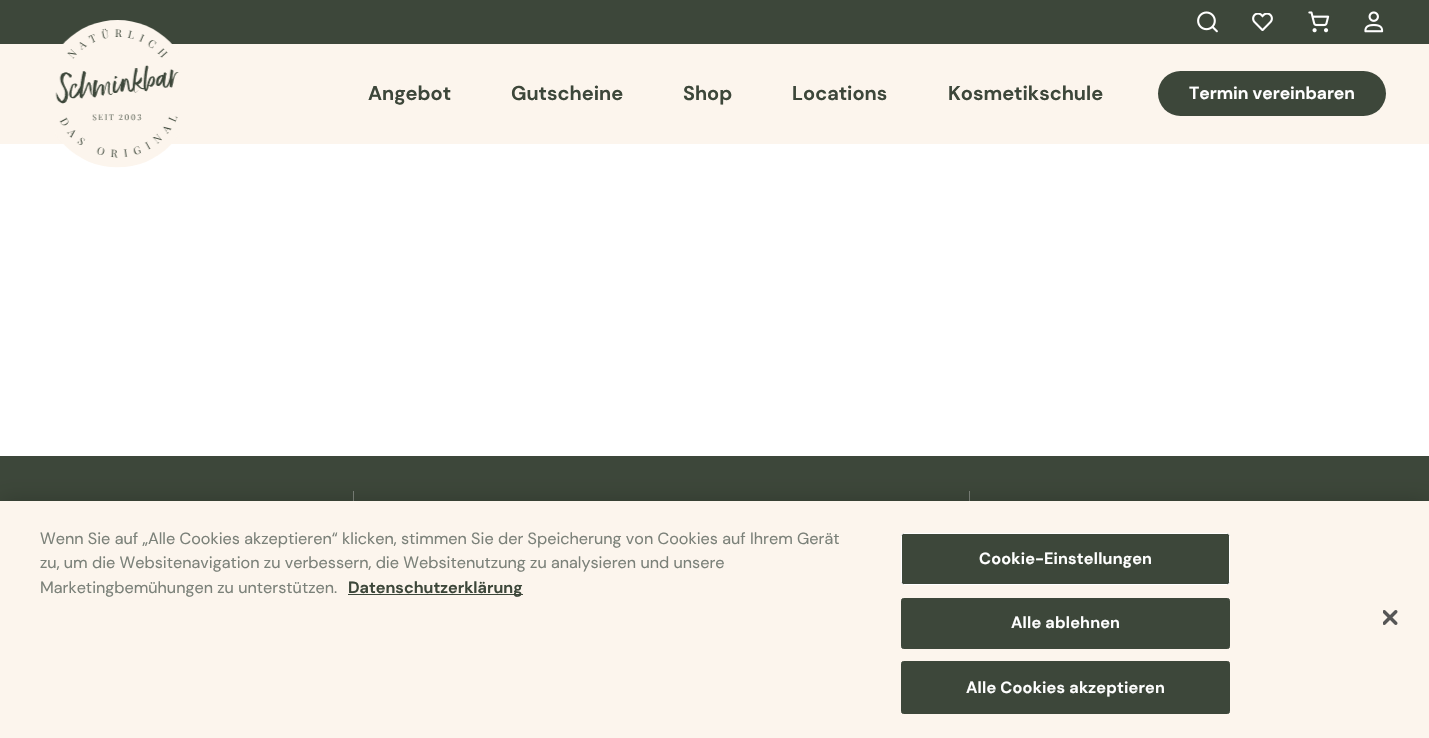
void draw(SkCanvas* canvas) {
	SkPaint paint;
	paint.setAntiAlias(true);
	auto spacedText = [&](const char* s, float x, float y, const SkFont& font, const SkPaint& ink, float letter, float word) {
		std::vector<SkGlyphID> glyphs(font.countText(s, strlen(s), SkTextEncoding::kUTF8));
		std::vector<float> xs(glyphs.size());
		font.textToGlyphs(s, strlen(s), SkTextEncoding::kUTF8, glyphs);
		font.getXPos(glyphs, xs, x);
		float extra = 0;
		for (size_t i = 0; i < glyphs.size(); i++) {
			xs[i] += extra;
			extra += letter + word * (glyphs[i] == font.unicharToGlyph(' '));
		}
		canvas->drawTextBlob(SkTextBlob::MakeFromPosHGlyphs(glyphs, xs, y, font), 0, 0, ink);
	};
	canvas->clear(0xffffffff);
	paint.setColor(0xff3d473a);
	canvas->drawRect(SkRect::MakeXYWH(0, 0, 1429, 44), paint);
	canvas->drawImageRect(SkImages::DeferredFromEncodedData(SkData::MakeFromFileName("img1.png")), SkRect::MakeXYWH(1197, 11, 21, 22), SkSamplingOptions());
	canvas->drawImageRect(SkImages::DeferredFromEncodedData(SkData::MakeFromFileName("img2.png")), SkRect::MakeXYWH(1252, 13, 21, 18), SkSamplingOptions());
	canvas->drawImageRect(SkImages::DeferredFromEncodedData(SkData::MakeFromFileName("img3.png")), SkRect::MakeXYWH(1308, 11, 22, 22), SkSamplingOptions());
	canvas->drawImageRect(SkImages::DeferredFromEncodedData(SkData::MakeFromFileName("img4.png")), SkRect::MakeXYWH(1364, 11, 20, 22), SkSamplingOptions());
	paint.setColor(0xfffcf5ed);
	canvas->drawRect(SkRect::MakeXYWH(0, 44, 1429, 100), paint);
	canvas->drawImageRect(SkImages::DeferredFromEncodedData(SkData::MakeFromFileName("img5.png")), SkRect::MakeXYWH(55, 20, 124, 148), SkSamplingOptions());
	SkFont f1(fontMgr->matchFamilyStyle("DM Sans", SkFontStyle::Bold()), 20);
	f1.setSubpixel(true);
	paint.setColor(0xff3d473a);
	canvas->drawString("Angebot", 368, 100, f1, paint);
	canvas->drawString("Gutscheine", 511, 100, f1, paint);
	canvas->drawString("Shop", 683, 100, f1, paint);
	canvas->drawString("Locations", 792, 100, f1, paint);
	canvas->drawString("Kosmetikschule", 948, 100, f1, paint);
	canvas->drawRoundRect(SkRect::MakeXYWH(1158, 71, 228, 45), 22.5, 22.5, paint);
	SkFont f2(fontMgr->matchFamilyStyle("DM Sans", SkFontStyle::Bold()), 17.5);
	f2.setSubpixel(true);
	paint.setColor(0xffffffff);
	canvas->drawString("Termin vereinbaren", 1189, 99, f2, paint);
	paint.setColor(0xff3d473a);
	canvas->drawRect(SkRect::MakeXYWH(0, 456, 1429, 45), paint);
	paint.setColor(0xff7b8179);
	canvas->drawRect(SkRect::MakeXYWH(969, 491, 1, 10), paint);
	canvas->drawRect(SkRect::MakeXYWH(353, 491, 1, 10), paint);
	paint.setColor(0x33000000);
	paint.setMaskFilter(SkMaskFilter::MakeBlur(kNormal_SkBlurStyle, 11));
	canvas->drawRect(SkRect::MakeXYWH(0, 501, 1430, 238), paint);
	paint.setMaskFilter(nullptr);
	paint.setColor(0xfffcf5ed);
	canvas->drawRect(SkRect::MakeXYWH(0, 501, 1429, 237), paint);
	SkFont f3(fontMgr->matchFamilyStyle("DM Sans", SkFontStyle::Normal()), 16.25);
	f3.setSubpixel(true);
	paint.setColor(0xff7b8179);
	canvas->drawString("Wenn Sie auf „Alle Cookies akzeptieren“ klicken, stimmen Sie der Speicherung von Cookies auf Ihrem Gerät", 40, 544, f3, paint);
	canvas->drawString("zu, um die Websitenavigation zu verbessern, die Websitenutzung zu analysieren und unsere", 40, 568, f3, paint);
	canvas->drawString("Marketingbemühungen zu unterstützen.", 40, 593, f3, paint);
	paint.setColor(0xff3d473a);
	canvas->drawRect(SkRect::MakeXYWH(348, 594, 175, 1), paint);
	SkFont f4(fontMgr->matchFamilyStyle("DM Sans", SkFontStyle::Bold()), 16.25);
	f4.setSubpixel(true);
	canvas->drawString("Datenschutzerklärung", 348, 593, f4, paint);
	canvas->drawRoundRect(SkRect::MakeXYWH(901.5, 533.5, 328, 51), 2, 2, paint);
	paint.setStroke(true);
	paint.setStrokeWidth(1);
	paint.setColor(0xffffffff);
	canvas->drawRoundRect(SkRect::MakeXYWH(901.5, 533.5, 328, 51), 2, 2, paint);
	paint.setStroke(false);
	spacedText("Cookie-Einstellungen", 979, 564, f4, paint, 0.2, 0);
	paint.setColor(0xff3d473a);
	canvas->drawRoundRect(SkRect::MakeXYWH(901.5, 598.5, 328, 50), 2, 2, paint);
	paint.setStroke(true);
	canvas->drawRoundRect(SkRect::MakeXYWH(901.5, 598.5, 328, 50), 2, 2, paint);
	paint.setStroke(false);
	paint.setColor(0xffffffff);
	spacedText("Alle ablehnen", 1011, 628, f4, paint, 0.2, 0);
	paint.setColor(0xff3d473a);
	canvas->drawRoundRect(SkRect::MakeXYWH(901.5, 661.5, 328, 52), 2, 2, paint);
	paint.setStroke(true);
	canvas->drawRoundRect(SkRect::MakeXYWH(901.5, 661.5, 328, 52), 2, 2, paint);
	paint.setStroke(false);
	paint.setColor(0xffffffff);
	spacedText("Alle Cookies akzeptieren", 966, 693, f4, paint, 0.2, 0);
	canvas->drawImageRect(SkImages::DeferredFromEncodedData(SkData::MakeFromFileName("img6.png")), SkRect::MakeXYWH(1383, 610, 15, 15), SkSamplingOptions());
}
